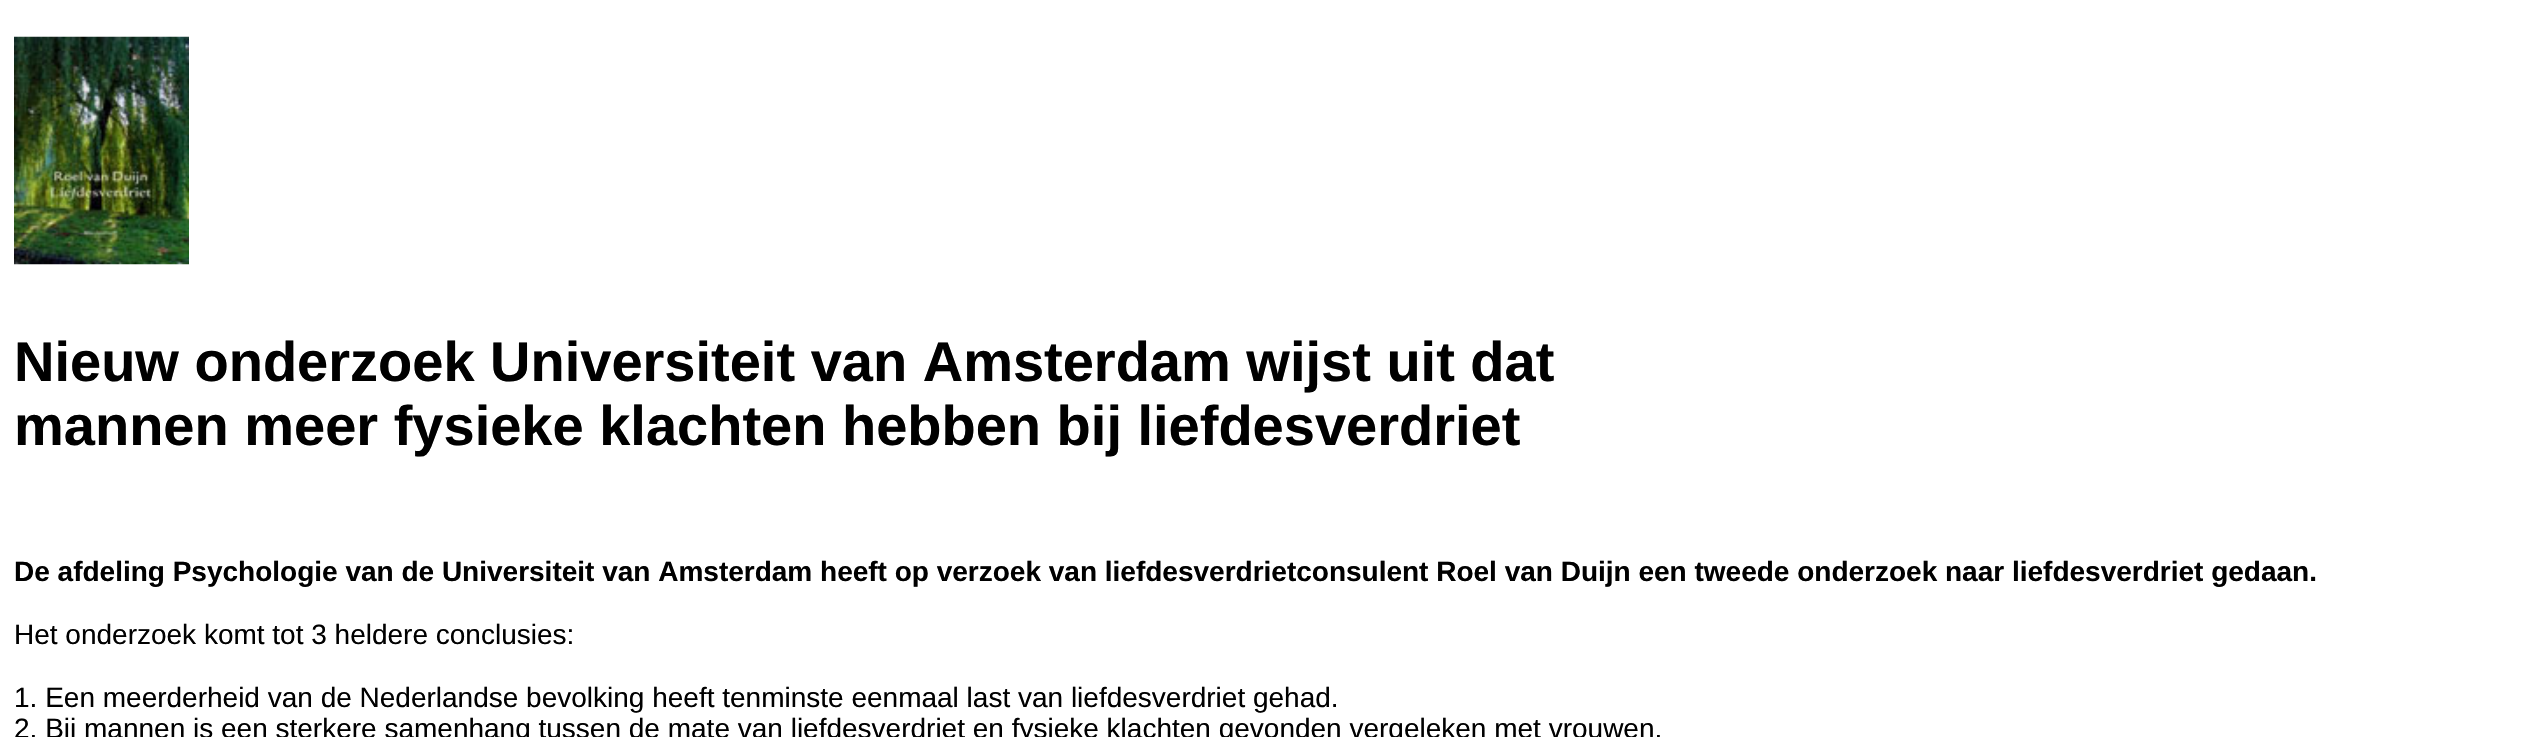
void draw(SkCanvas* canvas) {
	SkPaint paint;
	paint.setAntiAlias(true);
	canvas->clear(0xffffffff);
	canvas->drawImageRect(SkImages::DeferredFromEncodedData(SkData::MakeFromFileName("img1.png")), SkRect::MakeXYWH(14, 36, 175, 229), SkSamplingOptions());
	SkFont f1(fontMgr->matchFamilyStyle("Liberation Sans", SkFontStyle::Bold()), 56);
	f1.setSubpixel(true);
	paint.setColor(0xff000000);
	canvas->drawString("Nieuw onderzoek Universiteit van Amsterdam wijst uit dat", 14, 381, f1, paint);
	canvas->drawString("mannen meer fysieke klachten hebben bij liefdesverdriet", 14, 445, f1, paint);
	SkFont f2(fontMgr->matchFamilyStyle("Liberation Sans", SkFontStyle::Bold()), 28);
	f2.setSubpixel(true);
	canvas->drawString("De afdeling Psychologie van de Universiteit van Amsterdam heeft op verzoek van liefdesverdrietconsulent Roel van Duijn een tweede onderzoek naar liefdesverdriet gedaan.", 14, 581, f2, paint);
	SkFont f3(fontMgr->matchFamilyStyle("Liberation Sans", SkFontStyle::Normal()), 28);
	f3.setSubpixel(true);
	canvas->drawString("Het onderzoek komt tot 3 heldere conclusies:", 14, 644, f3, paint);
	canvas->drawString("1. Een meerderheid van de Nederlandse bevolking heeft tenminste eenmaal last van liefdesverdriet gehad.", 14, 707, f3, paint);
	canvas->drawString("2. Bij mannen is een sterkere samenhang tussen de mate van liefdesverdriet en fysieke klachten gevonden vergeleken met vrouwen.", 14, 738, f3, paint);
}
